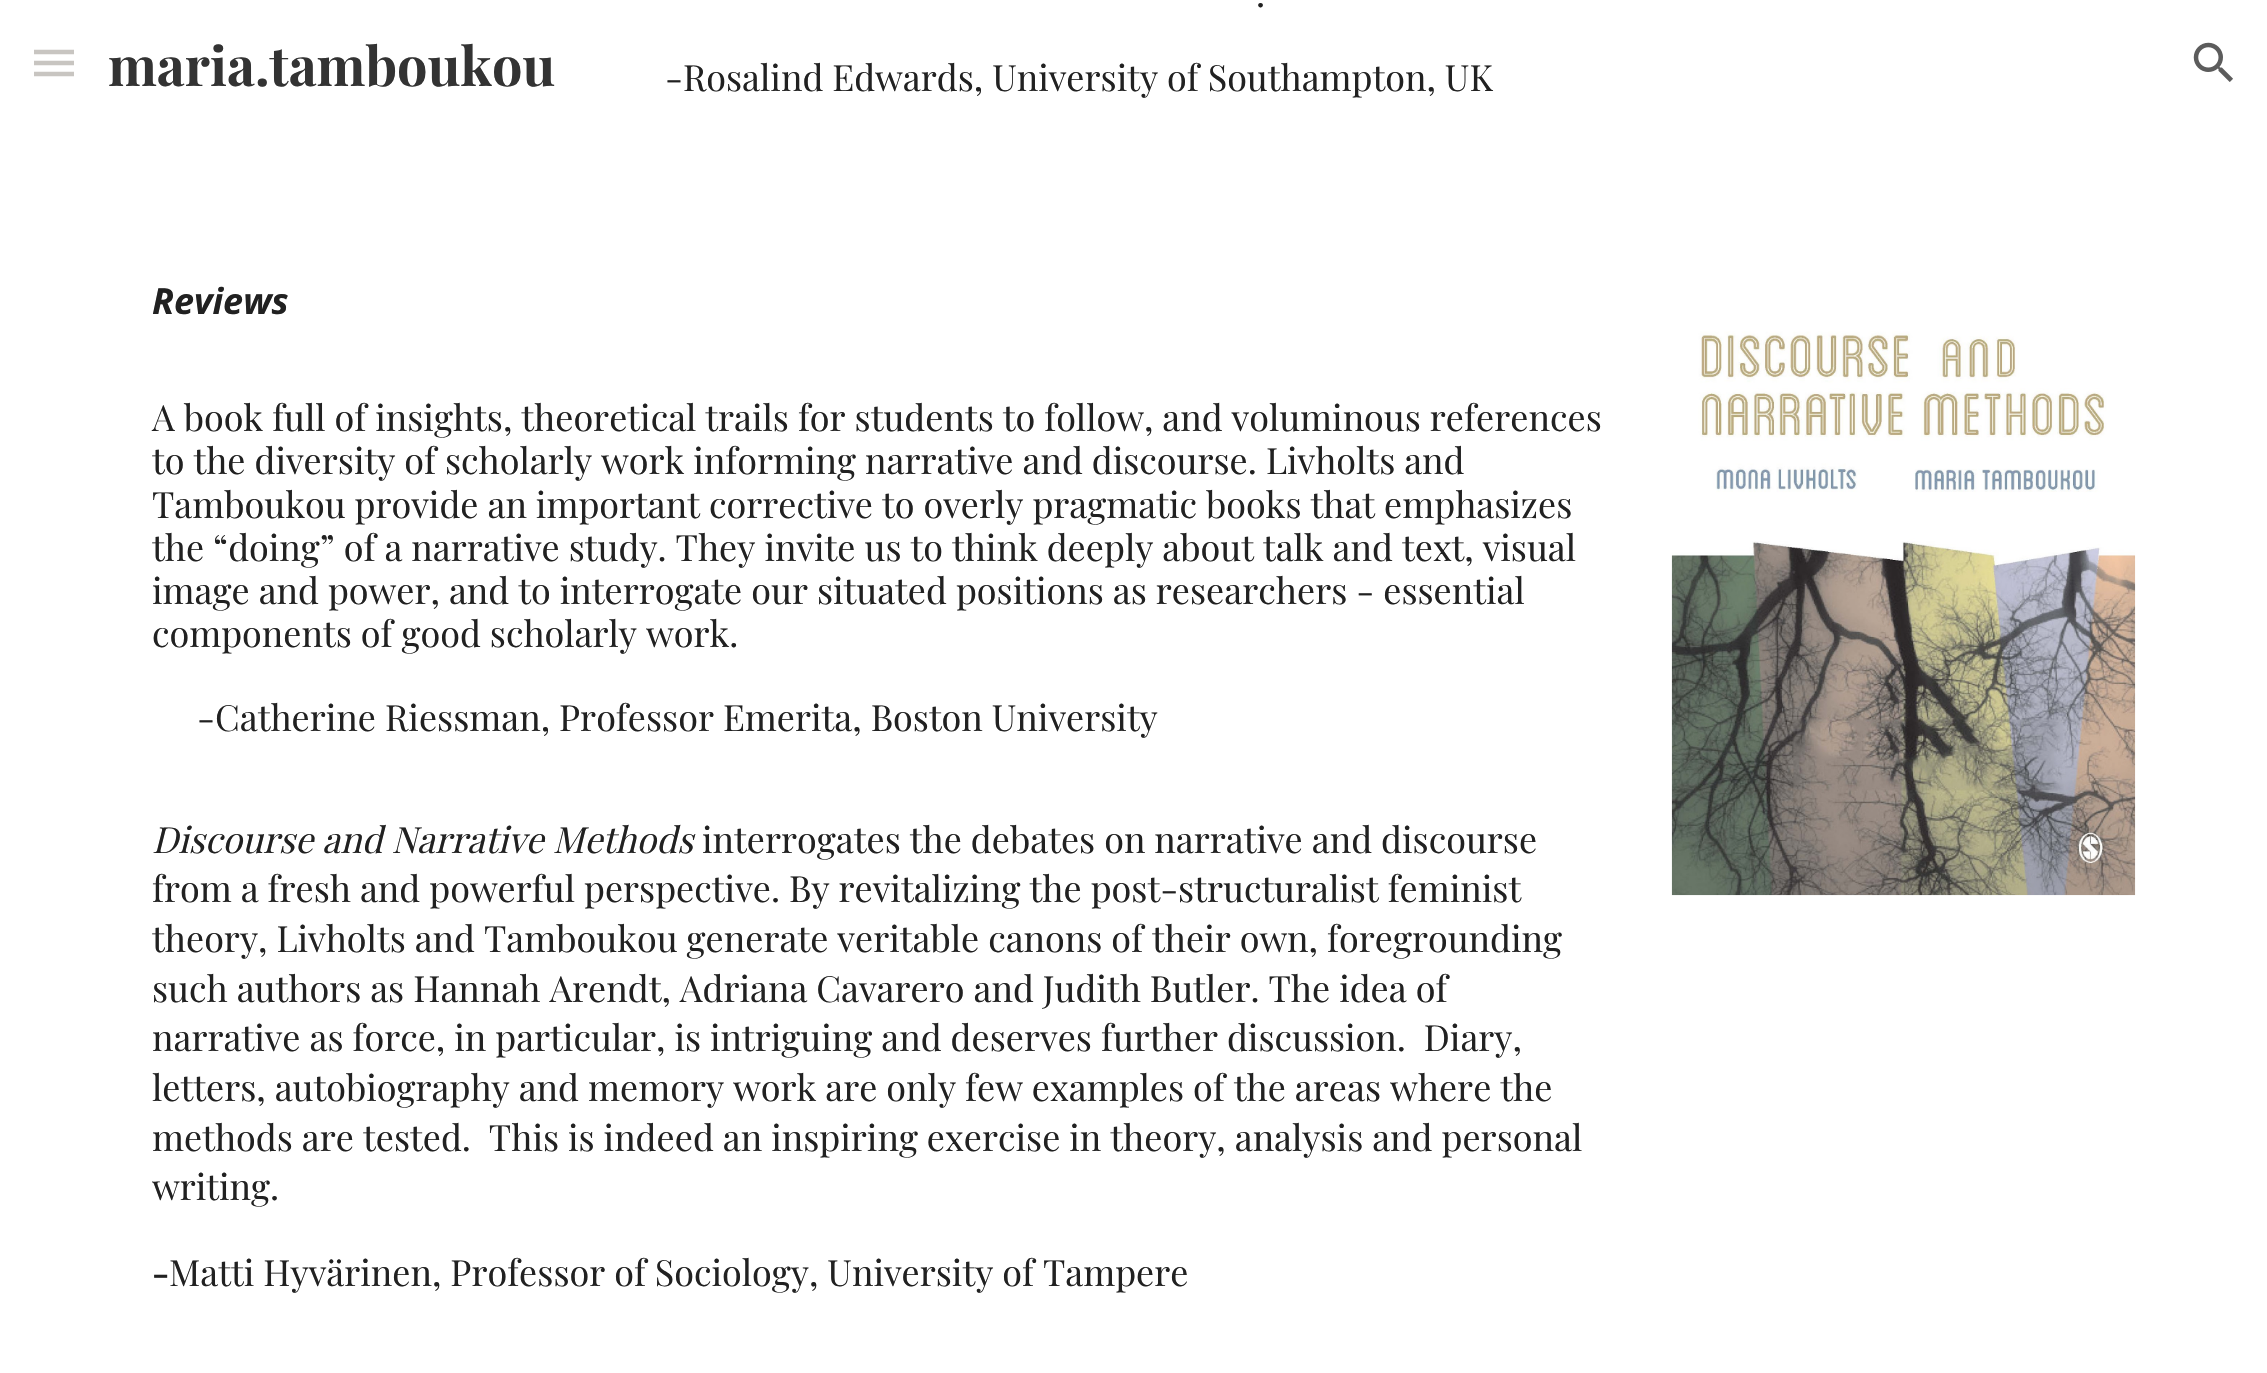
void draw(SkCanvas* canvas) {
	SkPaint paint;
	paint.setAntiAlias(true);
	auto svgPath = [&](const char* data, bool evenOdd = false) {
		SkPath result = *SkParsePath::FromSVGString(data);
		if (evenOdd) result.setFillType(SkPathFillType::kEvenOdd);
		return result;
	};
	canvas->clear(0xffffffff);
	SkFont f1(fontMgr->matchFamilyStyle("Playfair Display", SkFontStyle::Normal()), 36);
	f1.setSubpixel(true);
	paint.setColor(0xff212121);
	canvas->drawString(".", 1256, 7, f1, paint);
	canvas->drawString("-Rosalind Edwards, University of Southampton, UK", 665, 91, f1, paint);
	SkFont f2(fontMgr->matchFamilyStyle("Open Sans", SkFontStyle::BoldItalic()), 36);
	f2.setSubpixel(true);
	canvas->drawString("Reviews", 152, 314, f2, paint);
	canvas->drawString("A book full of insights, theoretical trails for students to follow, and voluminous references", 152, 431, f1, paint);
	canvas->drawString("to the diversity of scholarly work informing narrative and discourse. Livholts and", 152, 474, f1, paint);
	canvas->drawString("Tamboukou provide an important corrective to overly pragmatic books that emphasizes", 152, 518, f1, paint);
	canvas->drawString("the “doing” of a narrative study. They invite us to think deeply about talk and text, visual", 152, 561, f1, paint);
	canvas->drawString("image and power, and to interrogate our situated positions as researchers - essential", 152, 604, f1, paint);
	canvas->drawString("components of good scholarly work.", 152, 647, f1, paint);
	canvas->drawString("-Catherine Riessman, Professor Emerita, Boston University", 197, 731, f1, paint);
	SkFont f3(fontMgr->matchFamilyStyle("Playfair Display", SkFontStyle::Italic()), 36);
	f3.setSubpixel(true);
	canvas->drawString("Discourse and Narrative Methods", 152, 853, f3, paint);
	canvas->drawString("interrogates the debates on narrative and discourse", 702, 853, f1, paint);
	canvas->drawString("from a fresh and powerful perspective. By revitalizing the post-structuralist feminist", 152, 902, f1, paint);
	canvas->drawString("theory, Livholts and Tamboukou generate veritable canons of their own, foregrounding", 152, 952, f1, paint);
	canvas->drawString("such authors as Hannah Arendt, Adriana Cavarero and Judith Butler. The idea of", 152, 1002, f1, paint);
	canvas->drawString("narrative as force, in particular, is intriguing and deserves further discussion.  Diary,", 152, 1051, f1, paint);
	canvas->drawString("letters, autobiography and memory work are only few examples of the areas where the", 152, 1101, f1, paint);
	canvas->drawString("methods are tested.  This is indeed an inspiring exercise in theory, analysis and personal", 152, 1151, f1, paint);
	canvas->drawString("writing.", 152, 1200, f1, paint);
	SkFont f4(fontMgr->matchFamilyStyle("Playfair Display", SkFontStyle::Bold()), 36);
	f4.setSubpixel(true);
	canvas->drawString("-", 152, 1286, f4, paint);
	canvas->drawString("Matti Hyvärinen, Professor of Sociology, University of Tampere", 169, 1286, f1, paint);
	canvas->drawImageRect(SkImages::DeferredFromEncodedData(SkData::MakeFromFileName("img1.png")), SkRect::MakeXYWH(1671, 331, 465, 565), SkSamplingOptions());
	paint.setStroke(true);
	paint.setStrokeWidth(4.5);
	paint.setColor(0xffc8c5c1);
	canvas->drawPath(svgPath("M34 52H74M34 63H74M34 74H74"), paint);
	SkFont f5(fontMgr->matchFamilyStyle("Playfair Display", SkFontStyle::Bold()), 54);
	f5.setSubpixel(true);
	paint.setStroke(false);
	paint.setColor(0xff333333);
	canvas->drawString("maria.tamboukou", 108, 86, f5, paint);
	canvas->drawImageRect(SkImages::DeferredFromEncodedData(SkData::MakeFromFileName("img2.png")), SkRect::MakeXYWH(2193, 42, 40, 40), SkSamplingOptions());
}
